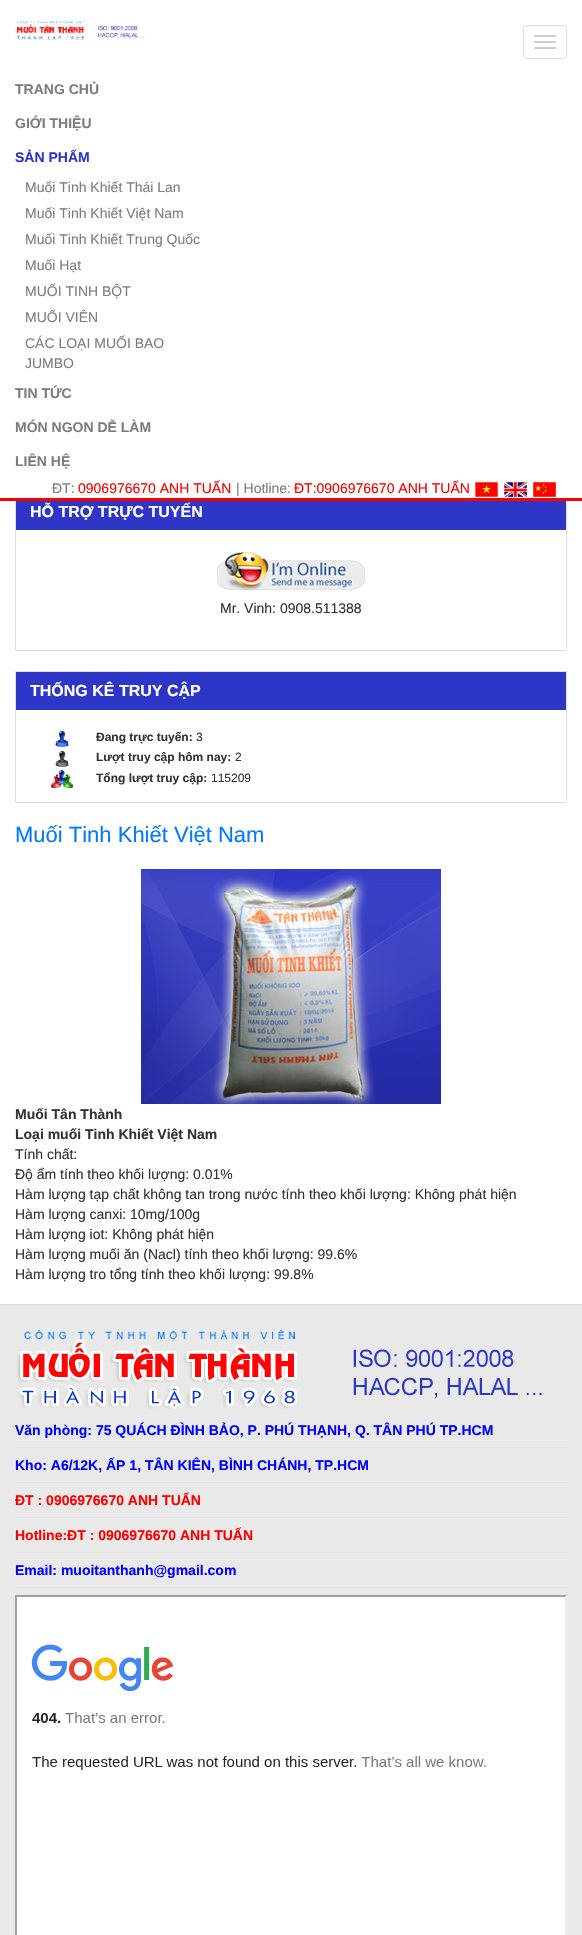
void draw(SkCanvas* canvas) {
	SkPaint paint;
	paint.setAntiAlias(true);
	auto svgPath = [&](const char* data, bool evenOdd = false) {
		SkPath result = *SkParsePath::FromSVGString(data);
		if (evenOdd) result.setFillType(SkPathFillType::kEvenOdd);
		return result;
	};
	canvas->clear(0xffe9e9e9);
	paint.setColor(0xffffffff);
	canvas->drawRect(SkRect::MakeXYWH(0, 501, 582, 803), paint);
	paint.setStroke(true);
	paint.setStrokeWidth(1);
	paint.setColor(0xffdedede);
	canvas->drawRect(SkRect::MakeXYWH(15.5, 492.5, 551, 158), paint);
	paint.setStroke(false);
	paint.setColor(0xffffffff);
	canvas->drawRect(SkRect::MakeXYWH(0, 0, 582, 498), paint);
	paint.setColor(0xffff0000);
	canvas->drawRect(SkRect::MakeXYWH(0, 498, 582, 3), paint);
	canvas->drawImageRect(SkImages::DeferredFromEncodedData(SkData::MakeFromFileName("img1.png")), SkRect::MakeXYWH(15, 21, 130, 20), SkSamplingOptions());
	paint.setStroke(true);
	paint.setColor(0xffdddddd);
	canvas->drawRoundRect(SkRect::MakeXYWH(523.5, 25.5, 43, 33), 3.5, 3.5, paint);
	paint.setStroke(false);
	paint.setColor(0xffcccccc);
	canvas->drawRoundRect(SkRect::MakeXYWH(534, 35, 22, 2), 1, 1, paint);
	canvas->drawRoundRect(SkRect::MakeXYWH(534, 41, 22, 2), 1, 1, paint);
	canvas->drawRoundRect(SkRect::MakeXYWH(534, 47, 22, 2), 1, 1, paint);
	SkFont f1(fontMgr->matchFamilyStyle("Liberation Sans", SkFontStyle::Bold()), 14);
	f1.setSubpixel(true);
	paint.setColor(0xff7d7d7d);
	canvas->drawString("TRANG CHỦ", 15, 94, f1, paint);
	canvas->drawString("GIỚI THIỆU", 15, 128, f1, paint);
	paint.setColor(0xff2e36c7);
	canvas->drawString("SẢN PHẨM", 15, 162, f1, paint);
	SkFont f2(fontMgr->matchFamilyStyle("Liberation Sans", SkFontStyle::Normal()), 14);
	f2.setSubpixel(true);
	paint.setColor(0xff7d7d7d);
	canvas->drawString("Muối Tinh Khiết Thái Lan", 25, 192, f2, paint);
	canvas->drawString("Muối Tinh Khiết Việt Nam", 25, 218, f2, paint);
	canvas->drawString("Muối Tinh Khiết Trung Quốc", 25, 244, f2, paint);
	canvas->drawString("Muối Hạt", 25, 270, f2, paint);
	canvas->drawString("MUỐI TINH BỘT", 25, 296, f2, paint);
	canvas->drawString("MUỐI VIÊN", 25, 322, f2, paint);
	canvas->drawString("CÁC LOẠI MUỐI BAO", 25, 348, f2, paint);
	canvas->drawString("JUMBO", 25, 368, f2, paint);
	canvas->drawString("TIN TỨC", 15, 398, f1, paint);
	canvas->drawString("MÓN NGON DỄ LÀM", 15, 432, f1, paint);
	canvas->drawString("LIÊN HỆ", 15, 466, f1, paint);
	canvas->drawString("ĐT:", 52, 493, f2, paint);
	paint.setColor(0xffff0000);
	canvas->drawString("0906976670 ANH TUẤN", 78, 493, f2, paint);
	paint.setColor(0xff7d7d7d);
	canvas->drawString("| Hotline:", 236, 493, f2, paint);
	paint.setColor(0xffff0000);
	canvas->drawString("ĐT:0906976670 ANH TUẤN", 294, 493, f2, paint);
	canvas->drawImageRect(SkImages::DeferredFromEncodedData(SkData::MakeFromFileName("img2.png")), SkRect::MakeXYWH(474, 481, 25, 17), SkSamplingOptions());
	canvas->drawImageRect(SkImages::DeferredFromEncodedData(SkData::MakeFromFileName("img3.png")), SkRect::MakeXYWH(503, 481, 25, 17), SkSamplingOptions());
	canvas->drawImageRect(SkImages::DeferredFromEncodedData(SkData::MakeFromFileName("img4.png")), SkRect::MakeXYWH(532, 481, 25, 17), SkSamplingOptions());
	paint.setColor(0xff2e36c7);
	canvas->drawRect(SkRect::MakeXYWH(16, 501, 550, 29), paint);
	SkFont f3(fontMgr->matchFamilyStyle("Liberation Sans", SkFontStyle::Bold()), 16);
	f3.setSubpixel(true);
	paint.setColor(0xffffffff);
	canvas->drawString("HỖ TRỢ TRỰC TUYẾN", 30, 517, f3, paint);
	canvas->drawImageRect(SkImages::DeferredFromEncodedData(SkData::MakeFromFileName("img5.png")), SkRect::MakeXYWH(217, 552, 148, 39), SkSamplingOptions());
	paint.setColor(0xff333333);
	canvas->drawString("Mr. Vinh: 0908.511388", 220, 613, f2, paint);
	paint.setStroke(true);
	paint.setColor(0xffdedede);
	canvas->drawRect(SkRect::MakeXYWH(15.5, 671.5, 551, 131), paint);
	paint.setStroke(false);
	paint.setColor(0xff2e36c7);
	canvas->drawRect(SkRect::MakeXYWH(16, 672, 550, 38), paint);
	paint.setColor(0xffffffff);
	canvas->drawString("THỐNG KÊ TRUY CẬP", 30, 696, f3, paint);
	canvas->drawImageRect(SkImages::DeferredFromEncodedData(SkData::MakeFromFileName("img6.png")), SkRect::MakeXYWH(55, 731, 14, 16), SkSamplingOptions());
	SkFont f4(fontMgr->matchFamilyStyle("Liberation Sans", SkFontStyle::Bold()), 12);
	f4.setSubpixel(true);
	paint.setColor(0xff333333);
	canvas->drawString("Đang trực tuyến:", 96, 741, f4, paint);
	SkFont f5(fontMgr->matchFamilyStyle("Liberation Sans", SkFontStyle::Normal()), 12);
	f5.setSubpixel(true);
	canvas->drawString("3", 196, 741, f5, paint);
	canvas->drawImageRect(SkImages::DeferredFromEncodedData(SkData::MakeFromFileName("img7.png")), SkRect::MakeXYWH(55, 751, 14, 16), SkSamplingOptions());
	canvas->drawString("Lượt truy cập hôm nay:", 96, 761, f4, paint);
	canvas->drawString("2", 235, 761, f5, paint);
	canvas->drawImageRect(SkImages::DeferredFromEncodedData(SkData::MakeFromFileName("img8.png")), SkRect::MakeXYWH(51, 770, 22, 18), SkSamplingOptions());
	canvas->drawString("Tổng lượt truy cập:", 96, 782, f4, paint);
	canvas->drawString("115209", 211, 782, f5, paint);
	SkFont f6(fontMgr->matchFamilyStyle("Liberation Sans", SkFontStyle::Normal()), 22);
	f6.setSubpixel(true);
	paint.setColor(0xff007aff);
	canvas->drawString("Muối Tinh Khiết Việt Nam", 15, 842, f6, paint);
	canvas->drawImageRect(SkImages::DeferredFromEncodedData(SkData::MakeFromFileName("img9.png")), SkRect::MakeXYWH(141, 869, 300, 235), SkSamplingOptions());
	paint.setColor(0xff333333);
	canvas->drawString("Muối Tân Thành", 15, 1119, f1, paint);
	canvas->drawString("Loại muối Tinh Khiết Việt Nam", 15, 1139, f1, paint);
	canvas->drawString("Tính chất:", 15, 1159, f2, paint);
	canvas->drawString("Độ ẩm tính theo khối lượng: 0.01%", 15, 1179, f2, paint);
	canvas->drawString("Hàm lượng tạp chất không tan trong nước tính theo khối lượng: Không phát hiện", 15, 1199, f2, paint);
	canvas->drawString("Hàm lượng canxi: 10mg/100g", 15, 1219, f2, paint);
	canvas->drawString("Hàm lượng iot: Không phát hiện", 15, 1239, f2, paint);
	canvas->drawString("Hàm lượng muối ăn (Nacl) tính theo khối lượng: 99.6%", 15, 1259, f2, paint);
	canvas->drawString("Hàm lượng tro tổng tính theo khối lượng: 99.8%", 15, 1279, f2, paint);
	paint.setColor(0xffdbdbdb);
	canvas->drawRect(SkRect::MakeXYWH(0, 1304, 582, 1), paint);
	canvas->drawImageRect(SkImages::DeferredFromEncodedData(SkData::MakeFromFileName("img10.png")), SkRect::MakeXYWH(17, 1330, 525, 79), SkSamplingOptions());
	paint.setColor(0xffe2e2e2);
	canvas->drawRect(SkRect::MakeXYWH(15, 1447, 552, 1), paint);
	paint.setColor(0xff0000ff);
	canvas->drawString("Văn phòng: 75 QUÁCH ĐÌNH BẢO, P. PHÚ THẠNH, Q. TÂN PHÚ TP.HCM", 15, 1435, f1, paint);
	paint.setColor(0xffe2e2e2);
	canvas->drawRect(SkRect::MakeXYWH(15, 1482, 552, 1), paint);
	paint.setColor(0xff0000ff);
	canvas->drawString("Kho: A6/12K, ẤP 1, TÂN KIÊN, BÌNH CHÁNH, TP.HCM", 15, 1470, f1, paint);
	paint.setColor(0xffe2e2e2);
	canvas->drawRect(SkRect::MakeXYWH(15, 1517, 552, 1), paint);
	paint.setColor(0xffff0000);
	canvas->drawString("ĐT : 0906976670 ANH TUẤN", 15, 1505, f1, paint);
	paint.setColor(0xffe2e2e2);
	canvas->drawRect(SkRect::MakeXYWH(15, 1552, 552, 1), paint);
	paint.setColor(0xffff0000);
	canvas->drawString("Hotline:ĐT : 0906976670 ANH TUẤN", 15, 1540, f1, paint);
	paint.setColor(0xffe2e2e2);
	canvas->drawRect(SkRect::MakeXYWH(15, 1587, 552, 1), paint);
	paint.setColor(0xff0000ff);
	canvas->drawString("Email: muoitanthanh@gmail.com", 15, 1575, f1, paint);
	paint.setColor(0xff9f9f9f);
	canvas->drawPath(svgPath("M15 1595H567L565 1597H17Z"), paint);
	canvas->drawPath(svgPath("M15 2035V1595L17 1597V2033Z"), paint);
	canvas->drawImageRect(SkImages::DeferredFromEncodedData(SkData::MakeFromFileName("img11.png")), SkRect::MakeXYWH(17, 1597, 548, 338), SkSamplingOptions());
	paint.setColor(0xffeeeeee);
	canvas->drawPath(svgPath("M567 1595V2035L565 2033V1597Z"), paint);
}
